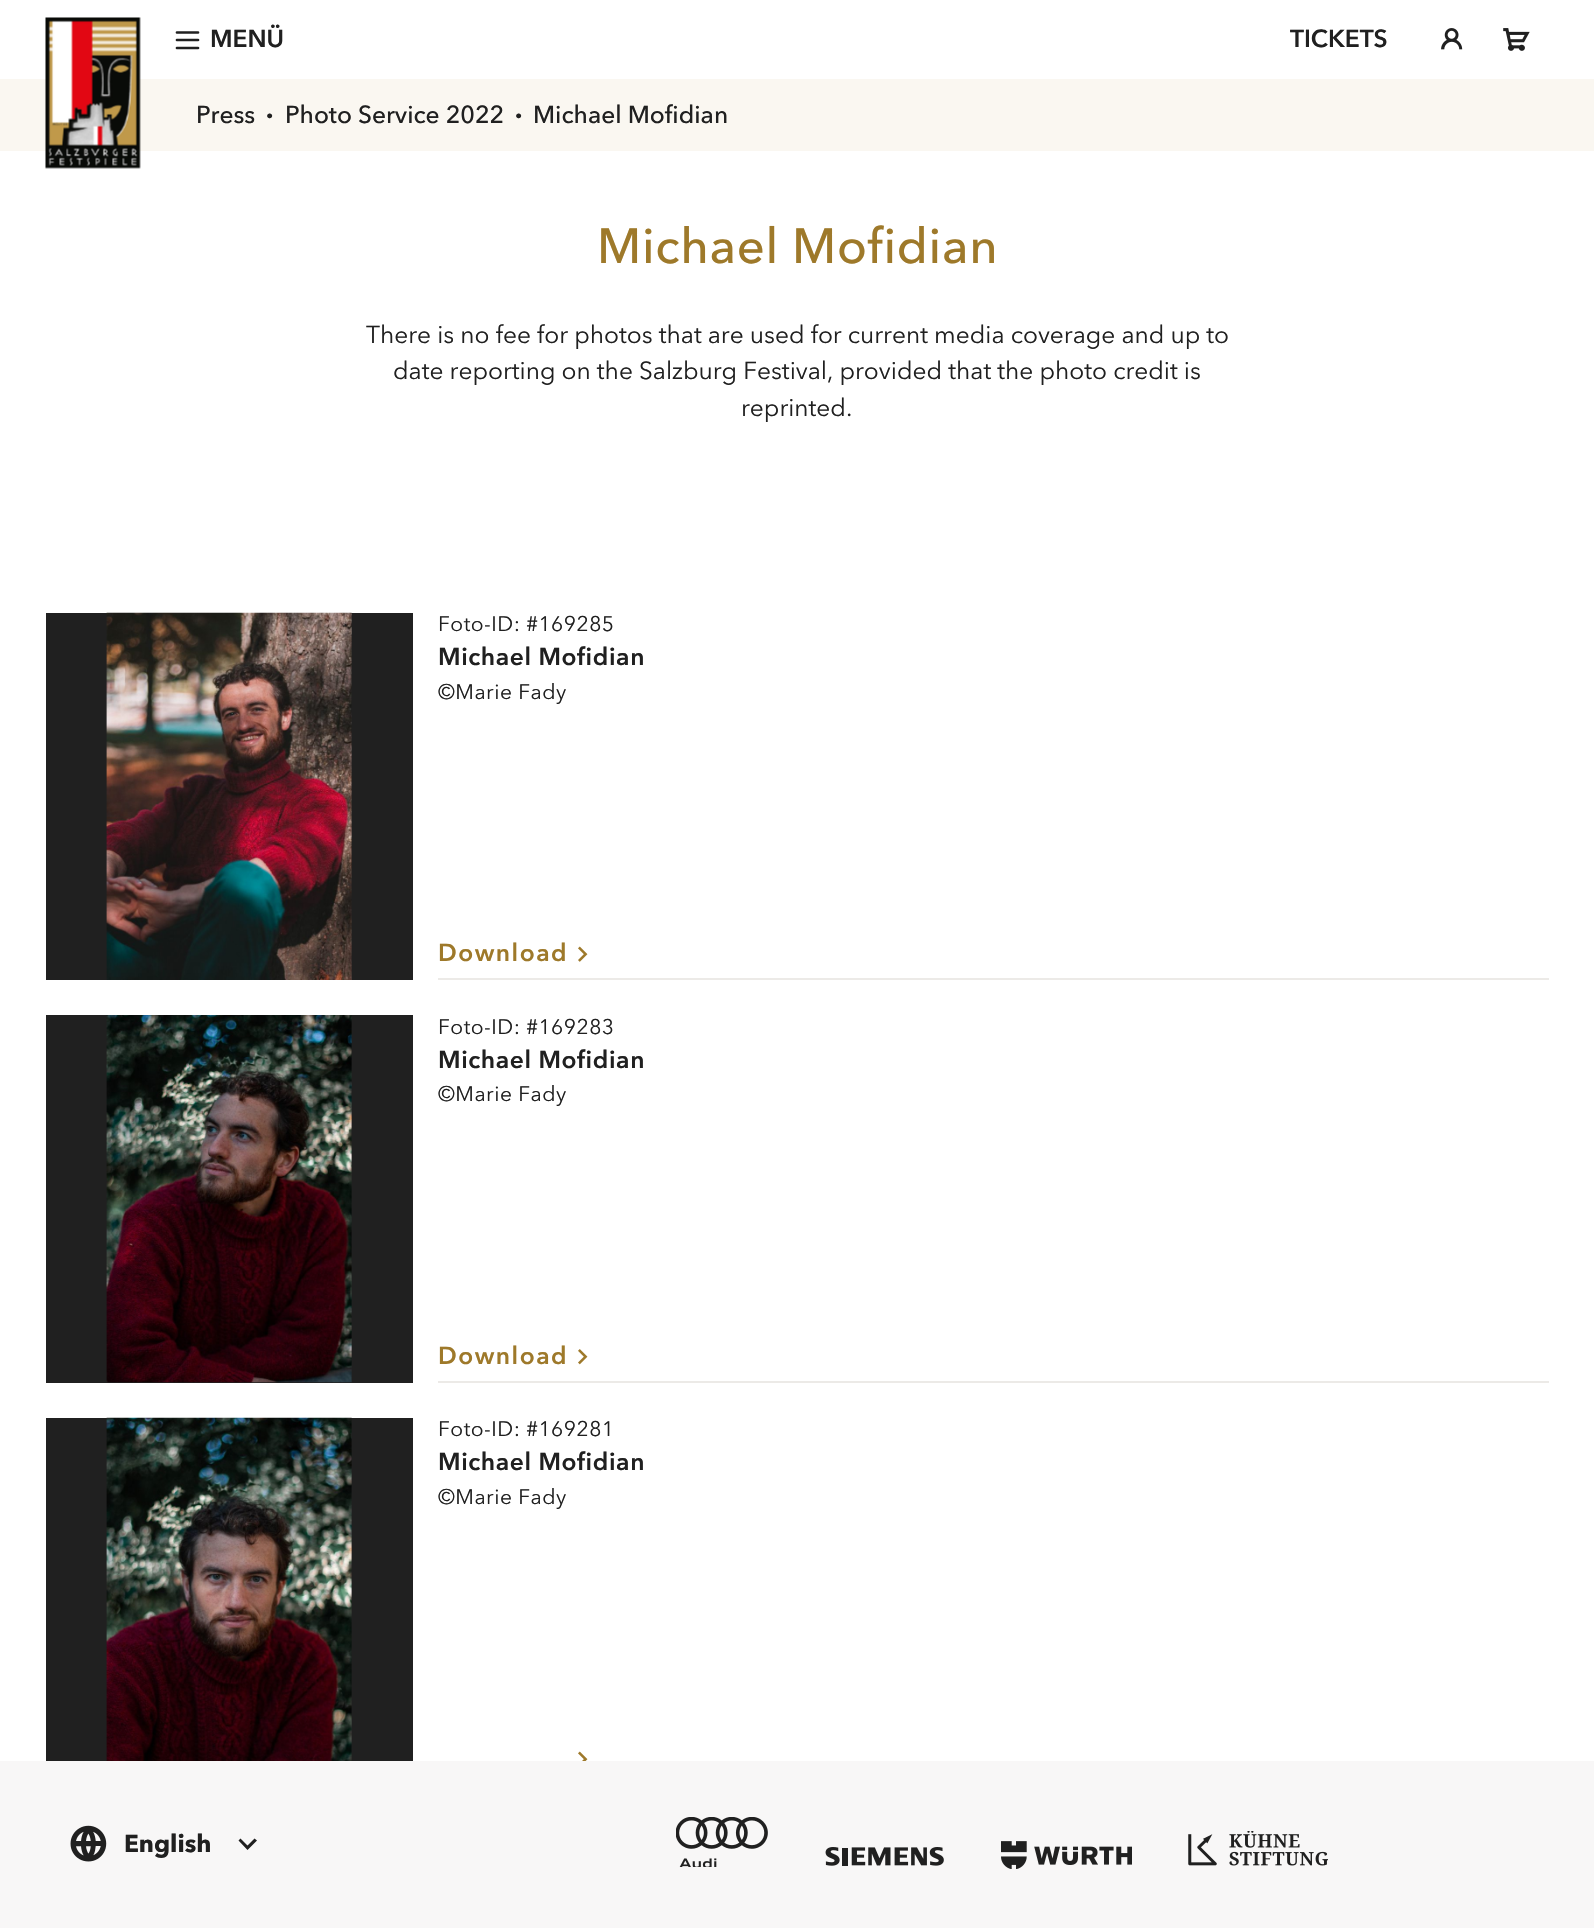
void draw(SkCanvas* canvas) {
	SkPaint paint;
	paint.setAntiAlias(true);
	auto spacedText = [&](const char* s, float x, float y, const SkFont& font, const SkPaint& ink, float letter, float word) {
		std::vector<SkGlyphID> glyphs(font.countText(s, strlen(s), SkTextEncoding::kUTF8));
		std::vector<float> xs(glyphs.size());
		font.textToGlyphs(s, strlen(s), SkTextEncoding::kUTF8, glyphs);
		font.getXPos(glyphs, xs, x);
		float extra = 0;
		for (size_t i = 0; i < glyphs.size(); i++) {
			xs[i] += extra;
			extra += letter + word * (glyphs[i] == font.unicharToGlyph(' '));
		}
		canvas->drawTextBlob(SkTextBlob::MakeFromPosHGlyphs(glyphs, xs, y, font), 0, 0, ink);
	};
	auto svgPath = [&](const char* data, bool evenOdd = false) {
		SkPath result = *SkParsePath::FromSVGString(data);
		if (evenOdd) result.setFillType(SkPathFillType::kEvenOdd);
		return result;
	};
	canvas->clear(0xffffffff);
	paint.setColor(0xfffaf7f1);
	canvas->drawRect(SkRect::MakeXYWH(0, 79, 1594, 72), paint);
	canvas->drawImageRect(SkImages::DeferredFromEncodedData(SkData::MakeFromFileName("img1.png")), SkRect::MakeXYWH(45, 17, 96, 152), SkSamplingOptions());
	paint.setStroke(true);
	paint.setStrokeWidth(2.7);
	paint.setStrokeCap(SkPaint::kRound_Cap);
	paint.setStrokeJoin(SkPaint::kRound_Join);
	paint.setColor(0xff202020);
	canvas->drawPath(svgPath("M177 40H198M177 32.5H198M177 48H198"), paint);
	SkFont f1(fontMgr->matchFamilyStyle("Avenir Next", SkFontStyle::Bold()), 24.5);
	f1.setSubpixel(true);
	paint.setStroke(false);
	canvas->drawString("MENÜ", 210, 47, f1, paint);
	canvas->drawString("TICKETS", 1290, 47, f1, paint);
	canvas->drawImageRect(SkImages::DeferredFromEncodedData(SkData::MakeFromFileName("img2.png")), SkRect::MakeXYWH(1441, 28, 22, 22), SkSamplingOptions());
	canvas->drawImageRect(SkImages::DeferredFromEncodedData(SkData::MakeFromFileName("img3.png")), SkRect::MakeXYWH(1503, 28, 27, 23), SkSamplingOptions());
	SkFont f2(fontMgr->matchFamilyStyle("Avenir Next", SkFontStyle(500, SkFontStyle::kNormal_Width, SkFontStyle::kUpright_Slant)), 24.5);
	f2.setSubpixel(true);
	canvas->drawString("Press", 196, 123, f2, paint);
	SkFont f3(fontMgr->matchFamilyStyle("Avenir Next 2", SkFontStyle::Bold()), 24.5);
	f3.setSubpixel(true);
	canvas->drawString("·", 266, 123, f3, paint);
	canvas->drawString("Photo Service 2022", 285, 123, f2, paint);
	canvas->drawString("·", 515, 123, f3, paint);
	canvas->drawString("Michael Mofidian", 533, 123, f2, paint);
	SkFont f4(fontMgr->matchFamilyStyle("Avenir Next", SkFontStyle(500, SkFontStyle::kNormal_Width, SkFontStyle::kUpright_Slant)), 49);
	f4.setSubpixel(true);
	paint.setColor(0xff9e792a);
	spacedText("Michael Mofidian", 597, 263, f4, paint, 0.7, 0);
	SkFont f5(fontMgr->matchFamilyStyle("Avenir Next", SkFontStyle::Normal()), 24.5);
	f5.setSubpixel(true);
	paint.setColor(0xff202020);
	canvas->drawString("There is no fee for photos that are used for current media coverage and up to", 366, 343, f5, paint);
	canvas->drawString("date reporting on the Salzburg Festival, provided that the photo credit is", 393, 379, f5, paint);
	canvas->drawString("reprinted.", 741, 416, f5, paint);
	canvas->drawRect(SkRect::MakeXYWH(46, 613, 367, 367), paint);
	canvas->drawImageRect(SkImages::DeferredFromEncodedData(SkData::MakeFromFileName("img4.png")), SkRect::MakeXYWH(106, 612, 246, 368), SkSamplingOptions());
	SkFont f6(fontMgr->matchFamilyStyle("Avenir Next", SkFontStyle::Normal()), 21);
	f6.setSubpixel(true);
	spacedText("Foto-ID: #169285", 438, 631, f6, paint, 0.5, 0);
	spacedText("Michael Mofidian", 438, 665, f1, paint, 0.6, 0);
	spacedText("©Marie Fady", 438, 699, f6, paint, 0.5, 0);
	paint.setColor(0xffeceae7);
	canvas->drawRect(SkRect::MakeXYWH(438, 978, 1111, 2), paint);
	paint.setColor(0xff9e792a);
	spacedText("Download", 438, 961, f1, paint, 1.5, 0);
	canvas->drawImageRect(SkImages::DeferredFromEncodedData(SkData::MakeFromFileName("img5.png")), SkRect::MakeXYWH(578, 946, 10, 16), SkSamplingOptions());
	paint.setColor(0xff202020);
	canvas->drawRect(SkRect::MakeXYWH(46, 1015, 367, 368), paint);
	canvas->drawImageRect(SkImages::DeferredFromEncodedData(SkData::MakeFromFileName("img6.png")), SkRect::MakeXYWH(106, 1015, 246, 368), SkSamplingOptions());
	spacedText("Foto-ID: #169283", 438, 1034, f6, paint, 0.5, 0);
	spacedText("Michael Mofidian", 438, 1068, f1, paint, 0.6, 0);
	spacedText("©Marie Fady", 438, 1101, f6, paint, 0.5, 0);
	paint.setColor(0xffeceae7);
	canvas->drawRect(SkRect::MakeXYWH(438, 1381, 1111, 2), paint);
	paint.setColor(0xff9e792a);
	spacedText("Download", 438, 1364, f1, paint, 1.5, 0);
	canvas->drawImageRect(SkImages::DeferredFromEncodedData(SkData::MakeFromFileName("img7.png")), SkRect::MakeXYWH(578, 1349, 10, 16), SkSamplingOptions());
	paint.setColor(0xff202020);
	canvas->drawRect(SkRect::MakeXYWH(46, 1418, 367, 343), paint);
	canvas->drawImageRect(SkImages::DeferredFromEncodedData(SkData::MakeFromFileName("img8.png")), SkRect::MakeXYWH(106, 1417, 246, 344), SkSamplingOptions());
	spacedText("Foto-ID: #169281", 438, 1436, f6, paint, 0.5, 0);
	spacedText("Michael Mofidian", 438, 1470, f1, paint, 0.6, 0);
	spacedText("©Marie Fady", 438, 1504, f6, paint, 0.5, 0);
	canvas->drawImageRect(SkImages::DeferredFromEncodedData(SkData::MakeFromFileName("img9.png")), SkRect::MakeXYWH(578, 1751, 10, 10), SkSamplingOptions());
	paint.setColor(0xfff8f7f7);
	canvas->drawRect(SkRect::MakeXYWH(0, 1761, 1594, 167), paint);
	canvas->drawImageRect(SkImages::DeferredFromEncodedData(SkData::MakeFromFileName("img10.png")), SkRect::MakeXYWH(70, 1825, 37, 37), SkSamplingOptions());
	paint.setColor(0xff202020);
	canvas->drawString("English", 124, 1852, f3, paint);
	canvas->drawPath(svgPath("M254.5 1838.5L247.5 1845.5L240.5 1838.5L238.5 1840.5L247.5 1850L257 1840.5Z"), paint);
	canvas->drawImageRect(SkImages::DeferredFromEncodedData(SkData::MakeFromFileName("img11.png")), SkRect::MakeXYWH(676, 1817, 92, 50), SkSamplingOptions());
	canvas->drawImageRect(SkImages::DeferredFromEncodedData(SkData::MakeFromFileName("img12.png")), SkRect::MakeXYWH(825, 1847, 119, 19), SkSamplingOptions());
	canvas->drawImageRect(SkImages::DeferredFromEncodedData(SkData::MakeFromFileName("img13.png")), SkRect::MakeXYWH(1001, 1841, 131, 28), SkSamplingOptions());
	canvas->drawImageRect(SkImages::DeferredFromEncodedData(SkData::MakeFromFileName("img14.png")), SkRect::MakeXYWH(1188, 1831, 140, 35), SkSamplingOptions());
}
